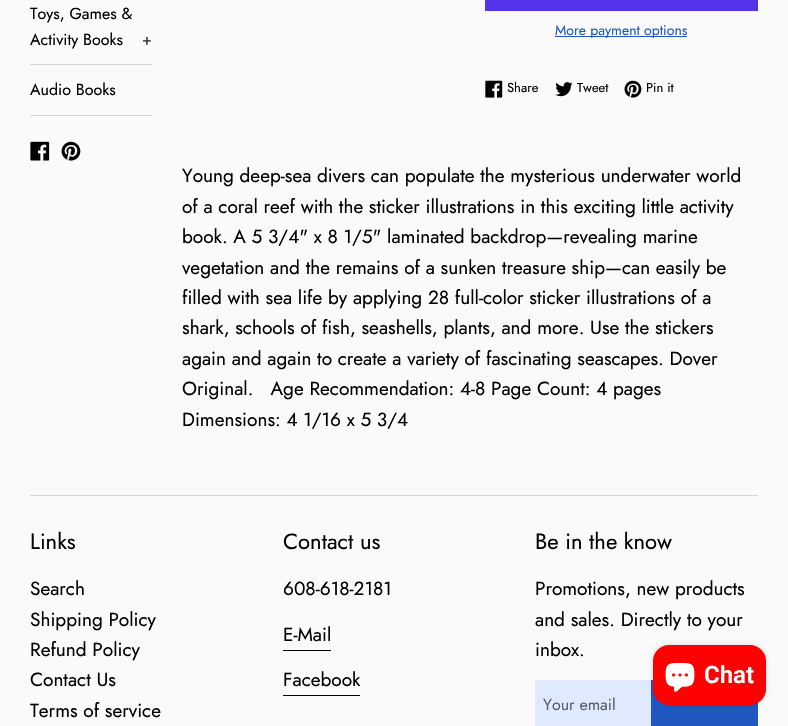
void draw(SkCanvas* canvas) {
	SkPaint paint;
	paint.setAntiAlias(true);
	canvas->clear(0xfffafafa);
	paint.setColor(0xffd7d8d2);
	canvas->drawRect(SkRect::MakeXYWH(30, 64, 122, 1), paint);
	SkFont f1(fontMgr->matchFamilyStyle("Jost", SkFontStyle::Normal()), 16);
	f1.setSubpixel(true);
	paint.setColor(0xff000000);
	canvas->drawString("Toys, Games &", 30, 19, f1, paint);
	canvas->drawString("Activity Books", 30, 45, f1, paint);
	paint.setColor(0xff323232);
	canvas->drawString("+", 142, 45, f1, paint);
	paint.setColor(0xffd7d8d2);
	canvas->drawRect(SkRect::MakeXYWH(30, 115, 122, 1), paint);
	paint.setColor(0xff000000);
	canvas->drawString("Audio Books", 30, 95, f1, paint);
	canvas->drawImageRect(SkImages::DeferredFromEncodedData(SkData::MakeFromFileName("img1.png")), SkRect::MakeXYWH(30, 141, 20, 20), SkSamplingOptions());
	canvas->drawImageRect(SkImages::DeferredFromEncodedData(SkData::MakeFromFileName("img2.png")), SkRect::MakeXYWH(61, 141, 20, 20), SkSamplingOptions());
	paint.setColor(0xff5433eb);
	canvas->drawRect(SkRect::MakeXYWH(485, 0, 273, 11), paint);
	paint.setColor(0xff2157c1);
	canvas->drawRect(SkRect::MakeXYWH(555, 36, 132, 1), paint);
	SkFont f2(fontMgr->matchFamilyStyle("Jost", SkFontStyle::Normal()), 14);
	f2.setSubpixel(true);
	canvas->drawString("More payment options", 555, 35, f2, paint);
	canvas->drawImageRect(SkImages::DeferredFromEncodedData(SkData::MakeFromFileName("img3.png")), SkRect::MakeXYWH(485, 80, 18, 18), SkSamplingOptions());
	SkFont f3(fontMgr->matchFamilyStyle("Jost", SkFontStyle::Normal()), 13);
	f3.setSubpixel(true);
	paint.setColor(0xff000000);
	canvas->drawString("Share", 507, 92, f3, paint);
	canvas->drawImageRect(SkImages::DeferredFromEncodedData(SkData::MakeFromFileName("img4.png")), SkRect::MakeXYWH(555, 82, 18, 15), SkSamplingOptions());
	canvas->drawString("Tweet", 577, 92, f3, paint);
	canvas->drawImageRect(SkImages::DeferredFromEncodedData(SkData::MakeFromFileName("img5.png")), SkRect::MakeXYWH(624, 80, 18, 18), SkSamplingOptions());
	canvas->drawString("Pin it", 646, 92, f3, paint);
	SkFont f4(fontMgr->matchFamilyStyle("Jost", SkFontStyle::Normal()), 19);
	f4.setSubpixel(true);
	canvas->drawString("Young deep-sea divers can populate the mysterious underwater world", 182, 182, f4, paint);
	canvas->drawString("of a coral reef with the sticker illustrations in this exciting little activity", 182, 213, f4, paint);
	canvas->drawString("book. A 5 3/4\" x 8 1/5\" laminated backdrop—revealing marine", 182, 243, f4, paint);
	canvas->drawString("vegetation and the remains of a sunken treasure ship—can easily be", 182, 274, f4, paint);
	canvas->drawString("filled with sea life by applying 28 full-color sticker illustrations of a", 182, 304, f4, paint);
	canvas->drawString("shark, schools of fish, seashells, plants, and more. Use the stickers", 182, 334, f4, paint);
	canvas->drawString("again and again to create a variety of fascinating seascapes. Dover", 182, 365, f4, paint);
	canvas->drawString("Original.   Age Recommendation: 4-8 Page Count: 4 pages", 182, 395, f4, paint);
	canvas->drawString("Dimensions: 4 1/16 x 5 3/4", 182, 426, f4, paint);
	paint.setColor(0xffd7d8d2);
	canvas->drawRect(SkRect::MakeXYWH(30, 495, 728, 1), paint);
	SkFont f5(fontMgr->matchFamilyStyle("Jost", SkFontStyle::Normal()), 22);
	f5.setSubpixel(true);
	paint.setColor(0xff000000);
	canvas->drawString("Links", 30, 549, f5, paint);
	canvas->drawString("Search", 30, 595, f4, paint);
	canvas->drawString("Shipping Policy", 30, 626, f4, paint);
	canvas->drawString("Refund Policy", 30, 656, f4, paint);
	canvas->drawString("Contact Us", 30, 686, f4, paint);
	canvas->drawString("Terms of service", 30, 717, f4, paint);
	canvas->drawString("Contact us", 283, 549, f5, paint);
	canvas->drawString("608-618-2181", 283, 595, f4, paint);
	canvas->drawString("E-Mail", 283, 641, f4, paint);
	canvas->drawRect(SkRect::MakeXYWH(283, 650, 48, 1), paint);
	canvas->drawString("Facebook", 283, 686, f4, paint);
	canvas->drawRect(SkRect::MakeXYWH(283, 695, 77, 1), paint);
	canvas->drawString("Be in the know", 535, 549, f5, paint);
	canvas->drawString("Promotions, new products", 535, 595, f4, paint);
	canvas->drawString("and sales. Directly to your", 535, 626, f4, paint);
	canvas->drawString("inbox.", 535, 656, f4, paint);
	paint.setColor(0xffdfeaff);
	canvas->drawRect(SkRect::MakeXYWH(535, 680, 116, 46), paint);
	paint.setColor(0xff595e66);
	canvas->drawString("Your email", 543, 710, f1, paint);
	paint.setColor(0xff2157c1);
	canvas->drawRect(SkRect::MakeXYWH(651, 680, 107, 46), paint);
	paint.setColor(0x26000000);
	paint.setMaskFilter(SkMaskFilter::MakeBlur(kNormal_SkBlurStyle, 2.5));
	canvas->drawRoundRect(SkRect::MakeXYWH(653, 645, 113, 60), 16, 16, paint);
	paint.setMaskFilter(nullptr);
	paint.setColor(0xffff0000);
	canvas->drawRoundRect(SkRect::MakeXYWH(653, 645, 113, 60), 16, 16, paint);
	canvas->drawImageRect(SkImages::DeferredFromEncodedData(SkData::MakeFromFileName("img6.png")), SkRect::MakeXYWH(665, 663, 30, 29), SkSamplingOptions());
	SkFont f6(fontMgr->matchFamilyStyle("Roboto", SkFontStyle(600, SkFontStyle::kNormal_Width, SkFontStyle::kUpright_Slant)), 24);
	f6.setSubpixel(true);
	paint.setColor(0xffffffff);
	canvas->drawString("Chat", 704, 683, f6, paint);
}
